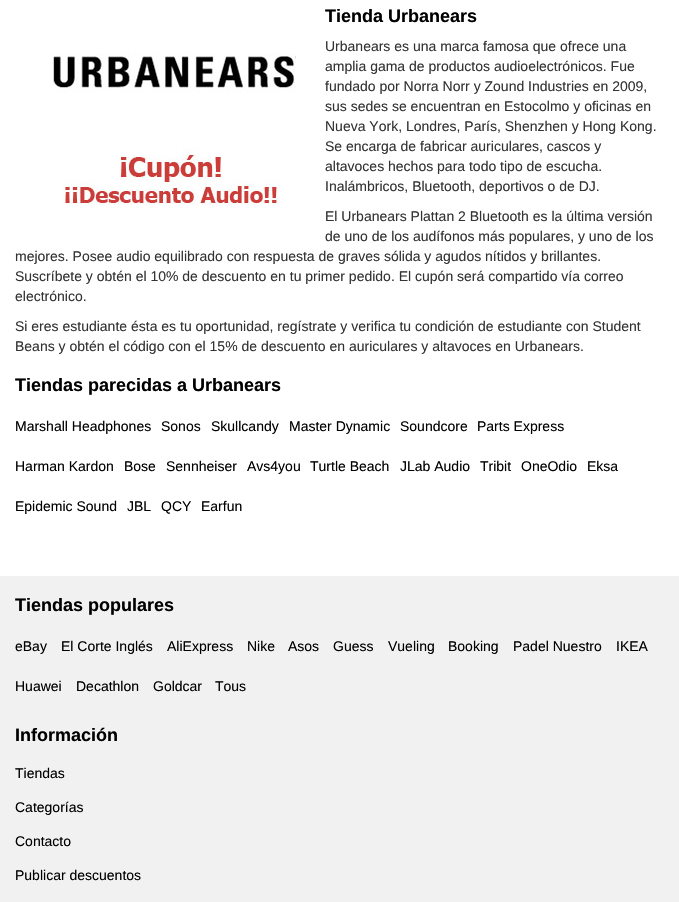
void draw(SkCanvas* canvas) {
	SkPaint paint;
	paint.setAntiAlias(true);
	canvas->clear(0xffffffff);
	SkFont f1(fontMgr->matchFamilyStyle("Liberation Sans", SkFontStyle::Bold()), 18);
	f1.setSubpixel(true);
	paint.setColor(0xff000000);
	canvas->drawString("Tienda Urbanears", 325, 22, f1, paint);
	canvas->drawImageRect(SkImages::DeferredFromEncodedData(SkData::MakeFromFileName("img1.png")), SkRect::MakeXYWH(51, 53, 250, 152), SkSamplingOptions());
	SkFont f2(fontMgr->matchFamilyStyle("Liberation Sans", SkFontStyle::Normal()), 14);
	f2.setSubpixel(true);
	paint.setColor(0xff333333);
	canvas->drawString("Urbanears es una marca famosa que ofrece una", 325, 51, f2, paint);
	canvas->drawString("amplia gama de productos audioelectrónicos. Fue", 325, 71, f2, paint);
	canvas->drawString("fundado por Norra Norr y Zound Industries en 2009,", 325, 91, f2, paint);
	canvas->drawString("sus sedes se encuentran en Estocolmo y oficinas en", 325, 111, f2, paint);
	canvas->drawString("Nueva York, Londres, París, Shenzhen y Hong Kong.", 325, 131, f2, paint);
	canvas->drawString("Se encarga de fabricar auriculares, cascos y", 325, 151, f2, paint);
	canvas->drawString("altavoces hechos para todo tipo de escucha.", 325, 171, f2, paint);
	canvas->drawString("Inalámbricos, Bluetooth, deportivos o de DJ.", 325, 191, f2, paint);
	canvas->drawString("El Urbanears Plattan 2 Bluetooth es la última versión", 325, 221, f2, paint);
	canvas->drawString("de uno de los audífonos más populares, y uno de los", 325, 241, f2, paint);
	canvas->drawString("mejores. Posee audio equilibrado con respuesta de graves sólida y agudos nítidos y brillantes.", 15, 261, f2, paint);
	canvas->drawString("Suscríbete y obtén el 10% de descuento en tu primer pedido. El cupón será compartido vía correo", 15, 281, f2, paint);
	canvas->drawString("electrónico.", 15, 301, f2, paint);
	canvas->drawString("Si eres estudiante ésta es tu oportunidad, regístrate y verifica tu condición de estudiante con Student", 15, 331, f2, paint);
	canvas->drawString("Beans y obtén el código con el 15% de descuento en auriculares y altavoces en Urbanears.", 15, 351, f2, paint);
	paint.setColor(0xff000000);
	canvas->drawString("Tiendas parecidas a Urbanears", 15, 391, f1, paint);
	canvas->drawString("Marshall Headphones", 15, 431, f2, paint);
	canvas->drawString("Sonos", 161, 431, f2, paint);
	canvas->drawString("Skullcandy", 211, 431, f2, paint);
	canvas->drawString("Master Dynamic", 289, 431, f2, paint);
	canvas->drawString("Soundcore", 400, 431, f2, paint);
	canvas->drawString("Parts Express", 477, 431, f2, paint);
	canvas->drawString("Harman Kardon", 15, 471, f2, paint);
	canvas->drawString("Bose", 124, 471, f2, paint);
	canvas->drawString("Sennheiser", 166, 471, f2, paint);
	canvas->drawString("Avs4you", 247, 471, f2, paint);
	canvas->drawString("Turtle Beach", 310, 471, f2, paint);
	canvas->drawString("JLab Audio", 400, 471, f2, paint);
	canvas->drawString("Tribit", 480, 471, f2, paint);
	canvas->drawString("OneOdio", 521, 471, f2, paint);
	canvas->drawString("Eksa", 587, 471, f2, paint);
	canvas->drawString("Epidemic Sound", 15, 511, f2, paint);
	canvas->drawString("JBL", 127, 511, f2, paint);
	canvas->drawString("QCY", 161, 511, f2, paint);
	canvas->drawString("Earfun", 201, 511, f2, paint);
	paint.setColor(0xfff1f1f1);
	canvas->drawRect(SkRect::MakeXYWH(0, 576, 679, 326), paint);
	paint.setColor(0xff000000);
	canvas->drawString("Tiendas populares", 15, 611, f1, paint);
	canvas->drawString("eBay", 15, 651, f2, paint);
	canvas->drawString("El Corte Inglés", 61, 651, f2, paint);
	canvas->drawString("AliExpress", 167, 651, f2, paint);
	canvas->drawString("Nike", 247, 651, f2, paint);
	canvas->drawString("Asos", 288, 651, f2, paint);
	canvas->drawString("Guess", 333, 651, f2, paint);
	canvas->drawString("Vueling", 388, 651, f2, paint);
	canvas->drawString("Booking", 448, 651, f2, paint);
	canvas->drawString("Padel Nuestro", 513, 651, f2, paint);
	canvas->drawString("IKEA", 616, 651, f2, paint);
	canvas->drawString("Huawei", 15, 691, f2, paint);
	canvas->drawString("Decathlon", 76, 691, f2, paint);
	canvas->drawString("Goldcar", 153, 691, f2, paint);
	canvas->drawString("Tous", 215, 691, f2, paint);
	canvas->drawString("Información", 15, 741, f1, paint);
	canvas->drawString("Tiendas", 15, 778, f2, paint);
	canvas->drawString("Categorías", 15, 812, f2, paint);
	canvas->drawString("Contacto", 15, 846, f2, paint);
	canvas->drawString("Publicar descuentos", 15, 880, f2, paint);
}
